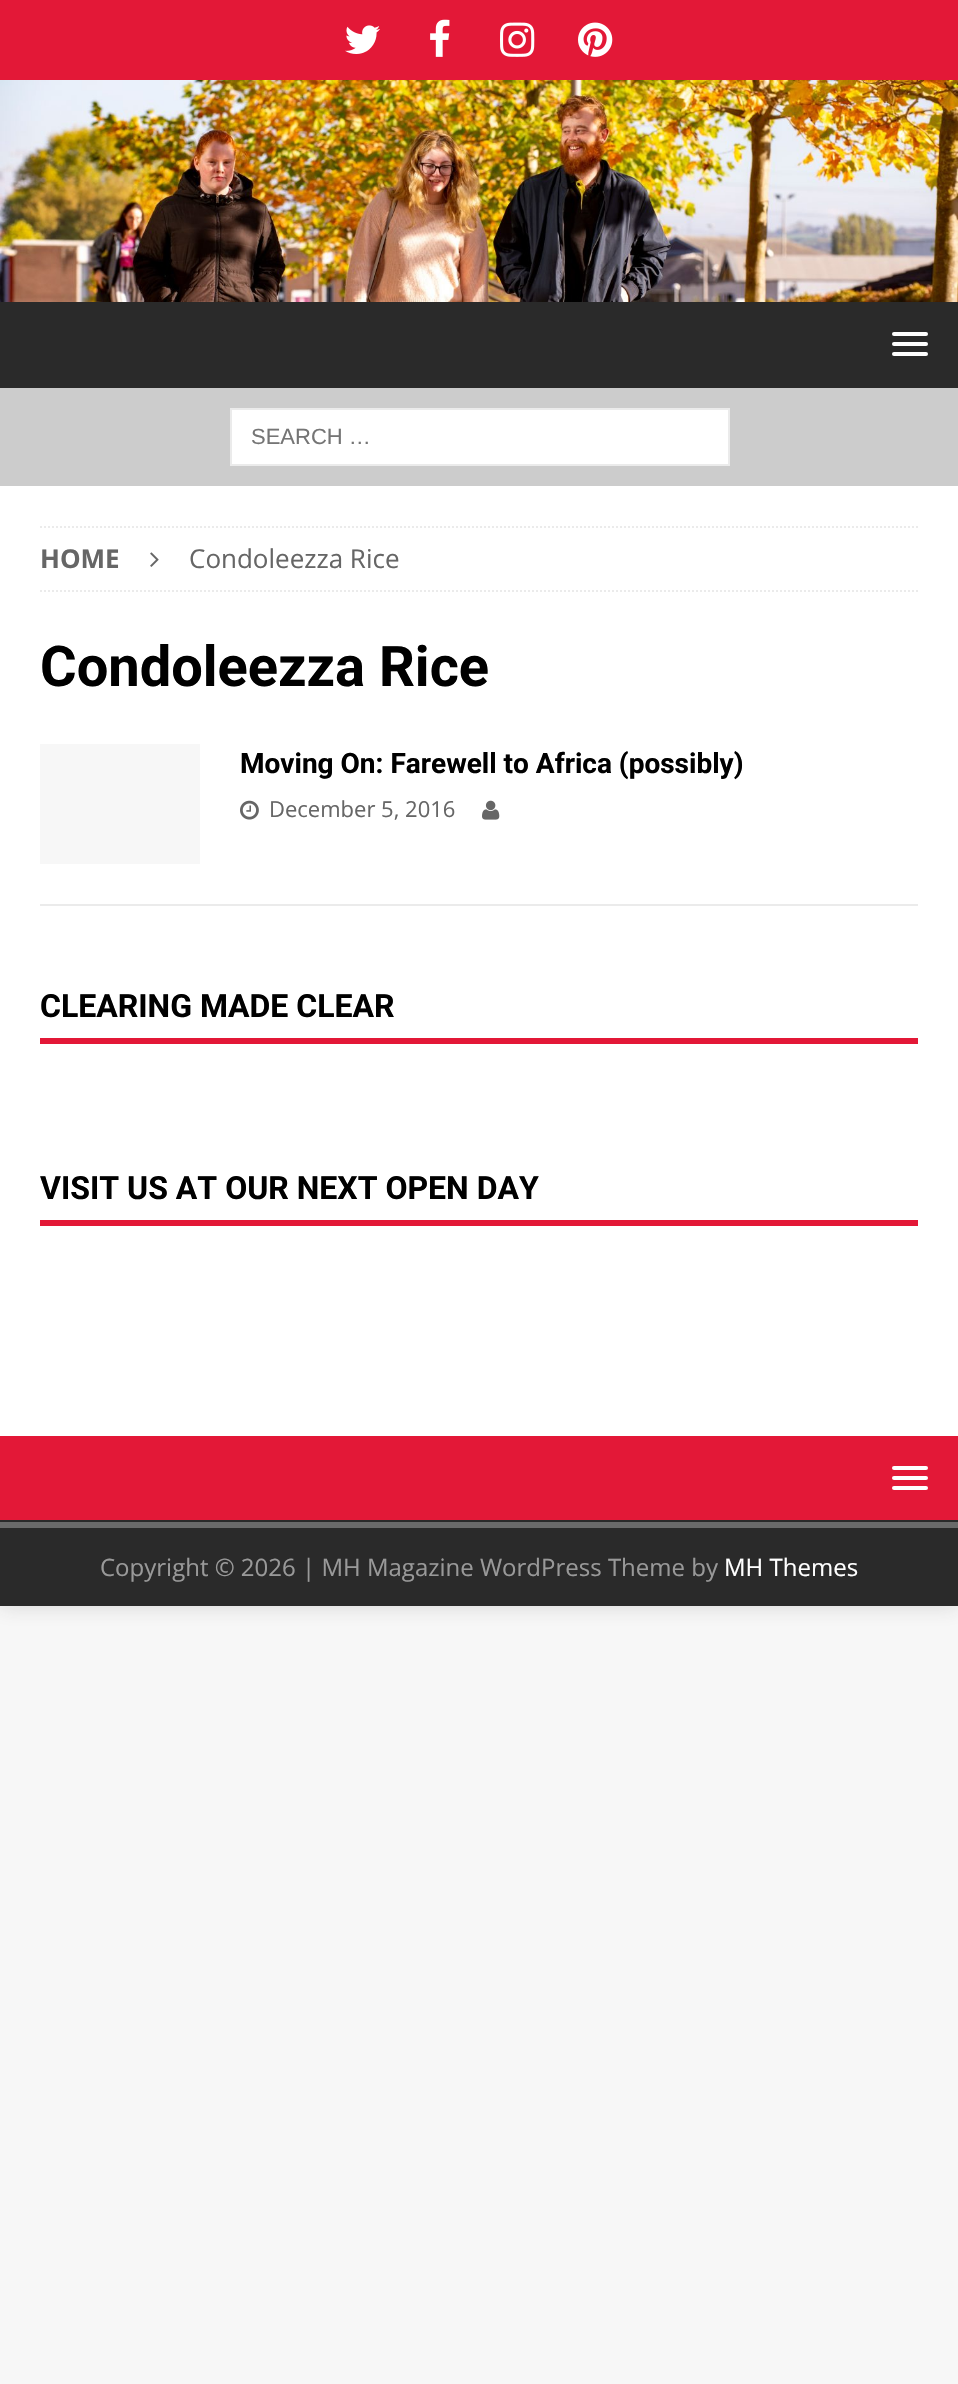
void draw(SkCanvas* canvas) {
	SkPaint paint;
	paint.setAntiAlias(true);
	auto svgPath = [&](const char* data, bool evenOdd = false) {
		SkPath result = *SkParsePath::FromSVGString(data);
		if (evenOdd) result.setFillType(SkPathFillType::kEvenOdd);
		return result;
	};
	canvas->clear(0xfff7f7f7);
	paint.setColor(0x2b323232);
	paint.setMaskFilter(SkMaskFilter::MakeBlur(kNormal_SkBlurStyle, 10));
	canvas->drawRect(SkRect::MakeXYWH(0, 0, 958, 1606), paint);
	paint.setMaskFilter(nullptr);
	paint.setColor(0xffe31837);
	canvas->drawRect(SkRect::MakeXYWH(0, 0, 958, 80), paint);
	canvas->drawImageRect(SkImages::DeferredFromEncodedData(SkData::MakeFromFileName("img1.png")), SkRect::MakeXYWH(345, 25, 35, 29), SkSamplingOptions());
	canvas->drawImageRect(SkImages::DeferredFromEncodedData(SkData::MakeFromFileName("img2.png")), SkRect::MakeXYWH(430, 19, 20, 38), SkSamplingOptions());
	canvas->drawImageRect(SkImages::DeferredFromEncodedData(SkData::MakeFromFileName("img3.png")), SkRect::MakeXYWH(500, 22, 35, 35), SkSamplingOptions());
	canvas->drawImageRect(SkImages::DeferredFromEncodedData(SkData::MakeFromFileName("img4.png")), SkRect::MakeXYWH(578, 22, 35, 35), SkSamplingOptions());
	canvas->drawImageRect(SkImages::DeferredFromEncodedData(SkData::MakeFromFileName("img5.png")), SkRect::MakeXYWH(0, 80, 958, 222), SkSamplingOptions());
	paint.setColor(0xff2a2a2a);
	canvas->drawRect(SkRect::MakeXYWH(0, 302, 958, 86), paint);
	paint.setColor(0xffffffff);
	canvas->drawRoundRect(SkRect::MakeXYWH(892, 332, 36, 4), 2, 2, paint);
	canvas->drawRoundRect(SkRect::MakeXYWH(892, 342, 36, 4), 2, 2, paint);
	canvas->drawRoundRect(SkRect::MakeXYWH(892, 352, 36, 4), 2, 2, paint);
	paint.setColor(0xffcccccc);
	canvas->drawRect(SkRect::MakeXYWH(0, 388, 958, 98), paint);
	paint.setColor(0xffffffff);
	canvas->drawRect(SkRect::MakeXYWH(231, 409, 498, 56), paint);
	paint.setStroke(true);
	paint.setStrokeWidth(2);
	paint.setColor(0xffebebeb);
	canvas->drawRect(SkRect::MakeXYWH(231, 409, 498, 56), paint);
	SkFont f1(fontMgr->matchFamilyStyle("Liberation Sans", SkFontStyle::Normal()), 22);
	f1.setSubpixel(true);
	paint.setStroke(false);
	paint.setColor(0xff757575);
	canvas->drawString("SEARCH …", 251, 444, f1, paint);
	paint.setColor(0xffffffff);
	canvas->drawRect(SkRect::MakeXYWH(0, 486, 958, 950), paint);
	paint.setStroke(true);
	paint.setColor(0xffebebeb);
	paint.setPathEffect(SkDashPathEffect::Make({{2, 2}}, 0));
	canvas->drawPath(svgPath("M40 527H918"), paint);
	paint.setPathEffect(nullptr);
	paint.setPathEffect(SkDashPathEffect::Make({{2, 2}}, 0));
	canvas->drawPath(svgPath("M40 591H918"), paint);
	paint.setPathEffect(nullptr);
	SkFont f2(fontMgr->matchFamilyStyle("Open Sans", SkFontStyle::Bold()), 26);
	f2.setSubpixel(true);
	paint.setStroke(false);
	paint.setColor(0xff666666);
	canvas->drawString("HOME", 40, 568, f2, paint);
	canvas->drawImageRect(SkImages::DeferredFromEncodedData(SkData::MakeFromFileName("img6.png")), SkRect::MakeXYWH(150, 552, 9, 15), SkSamplingOptions());
	SkFont f3(fontMgr->matchFamilyStyle("Open Sans", SkFontStyle::Normal()), 26);
	f3.setSubpixel(true);
	canvas->drawString("Condoleezza Rice", 189, 568, f3, paint);
	SkFont f4(fontMgr->matchFamilyStyle("Roboto", SkFontStyle::Bold()), 56);
	f4.setSubpixel(true);
	paint.setColor(0xff000000);
	canvas->drawString("Condoleezza Rice", 40, 686, f4, paint);
	paint.setColor(0xffebebeb);
	canvas->drawRect(SkRect::MakeXYWH(40, 904, 878, 2), paint);
	paint.setColor(0xfff7f7f7);
	canvas->drawRect(SkRect::MakeXYWH(40, 744, 160, 120), paint);
	SkFont f5(fontMgr->matchFamilyStyle("Roboto", SkFontStyle::Bold()), 28);
	f5.setSubpixel(true);
	paint.setColor(0xff000000);
	canvas->drawString("Moving On: Farewell to Africa (possibly)", 240, 773, f5, paint);
	canvas->drawImageRect(SkImages::DeferredFromEncodedData(SkData::MakeFromFileName("img7.png")), SkRect::MakeXYWH(240, 800, 19, 20), SkSamplingOptions());
	SkFont f6(fontMgr->matchFamilyStyle("Open Sans", SkFontStyle::Normal()), 22);
	f6.setSubpixel(true);
	paint.setColor(0xff666666);
	canvas->drawString("December 5, 2016", 269, 817, f6, paint);
	canvas->drawImageRect(SkImages::DeferredFromEncodedData(SkData::MakeFromFileName("img8.png")), SkRect::MakeXYWH(482, 800, 18, 20), SkSamplingOptions());
	paint.setColor(0xffe31837);
	canvas->drawRect(SkRect::MakeXYWH(40, 1038, 878, 6), paint);
	SkFont f7(fontMgr->matchFamilyStyle("Roboto", SkFontStyle::Bold()), 32);
	f7.setSubpixel(true);
	paint.setColor(0xff000000);
	canvas->drawString("CLEARING MADE CLEAR", 40, 1017, f7, paint);
	paint.setColor(0xffe31837);
	canvas->drawRect(SkRect::MakeXYWH(40, 1220, 878, 6), paint);
	paint.setColor(0xff000000);
	canvas->drawString("VISIT US AT OUR NEXT OPEN DAY", 40, 1199, f7, paint);
	paint.setColor(0xffe31837);
	canvas->drawRect(SkRect::MakeXYWH(0, 1436, 958, 84), paint);
	paint.setColor(0xff2a2a2a);
	canvas->drawRect(SkRect::MakeXYWH(0, 1520, 958, 2), paint);
	paint.setColor(0xffffffff);
	canvas->drawRoundRect(SkRect::MakeXYWH(892, 1466, 36, 4), 2, 2, paint);
	canvas->drawRoundRect(SkRect::MakeXYWH(892, 1476, 36, 4), 2, 2, paint);
	canvas->drawRoundRect(SkRect::MakeXYWH(892, 1486, 36, 4), 2, 2, paint);
	paint.setColor(0xff2a2a2a);
	canvas->drawRect(SkRect::MakeXYWH(0, 1528, 958, 78), paint);
	paint.setColor(0xff6a6a6a);
	canvas->drawRect(SkRect::MakeXYWH(0, 1522, 958, 6), paint);
	SkFont f8(fontMgr->matchFamilyStyle("Open Sans", SkFontStyle::Normal()), 24);
	f8.setSubpixel(true);
	paint.setColor(0xff999999);
	canvas->drawString("Copyright © 2026 | MH Magazine WordPress Theme by", 100, 1576, f8, paint);
	paint.setColor(0xffffffff);
	canvas->drawString("MH Themes", 724, 1576, f8, paint);
}
